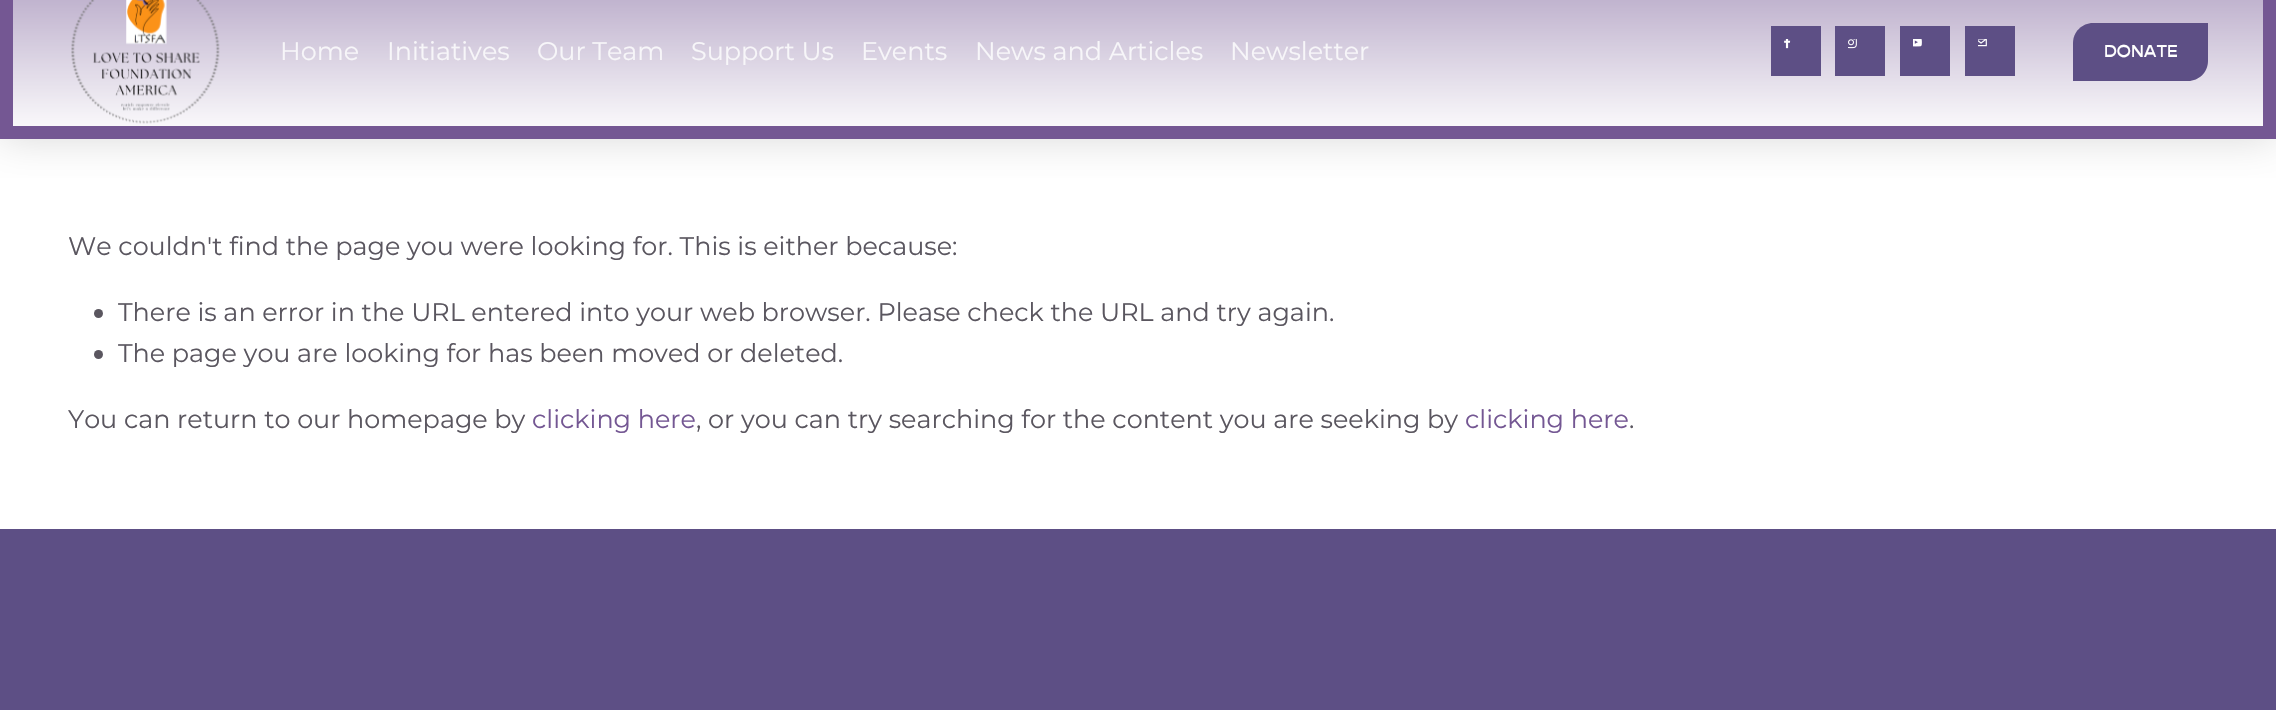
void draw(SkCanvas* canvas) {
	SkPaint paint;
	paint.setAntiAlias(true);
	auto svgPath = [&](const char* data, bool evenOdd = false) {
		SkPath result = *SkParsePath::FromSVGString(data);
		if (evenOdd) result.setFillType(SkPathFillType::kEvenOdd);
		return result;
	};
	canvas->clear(0xffffffff);
	canvas->save();
	canvas->clipRect(SkRect::MakeXYWH(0, 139, 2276, 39));
	paint.setColor(0xffd9d9d9);
	paint.setMaskFilter(SkMaskFilter::MakeBlur(kNormal_SkBlurStyle, 19));
	canvas->drawRect(SkRect::MakeXYWH(0, -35, 2276, 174), paint);
	paint.setMaskFilter(nullptr);
	canvas->restore();
	{
		const SkColor colors[] = {0x8f745793, 0x00745793};
		const float stops[] = {0, 1};
		const SkPoint ends[] = {{1138, -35}, {1138, 139}};
		paint.setShader(SkGradientShader::MakeLinear(ends, colors, stops, 2, SkTileMode::kClamp));
		paint.setAlpha(255);
	}
	canvas->drawRect(SkRect::MakeXYWH(13, 0, 2250, 126), paint);
	paint.setStroke(true);
	paint.setStrokeWidth(13);
	paint.setShader(nullptr);
	paint.setColor(0xff745793);
	canvas->drawRect(SkRect::MakeXYWH(6.5, -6.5, 2263, 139), paint);
	canvas->drawImageRect(SkImages::DeferredFromEncodedData(SkData::MakeFromFileName("img1.png")), SkRect::MakeXYWH(71, 0, 149, 124), SkSamplingOptions());
	SkFont f1(fontMgr->matchFamilyStyle("Montserrat", SkFontStyle::Normal()), 25.45);
	f1.setSubpixel(true);
	paint.setStroke(false);
	paint.setColor(0xfff7f6f9);
	canvas->drawString("Home", 280, 60, f1, paint);
	canvas->drawString("Initiatives", 387, 60, f1, paint);
	canvas->drawString("Our Team", 537, 60, f1, paint);
	canvas->drawString("Support Us", 691, 60, f1, paint);
	canvas->drawString("Events", 861, 60, f1, paint);
	canvas->drawString("News and Articles", 975, 60, f1, paint);
	canvas->drawString("Newsletter", 1230, 60, f1, paint);
	paint.setColor(0xff5d4f85);
	canvas->drawRect(SkRect::MakeXYWH(1771, 26, 50, 50), paint);
	canvas->drawImageRect(SkImages::DeferredFromEncodedData(SkData::MakeFromFileName("img2.png")), SkRect::MakeXYWH(1784, 39, 7, 10), SkSamplingOptions());
	canvas->drawRect(SkRect::MakeXYWH(1835, 26, 50, 50), paint);
	canvas->drawImageRect(SkImages::DeferredFromEncodedData(SkData::MakeFromFileName("img3.png")), SkRect::MakeXYWH(1848, 39, 9, 10), SkSamplingOptions());
	canvas->drawRect(SkRect::MakeXYWH(1900, 26, 50, 50), paint);
	canvas->drawImageRect(SkImages::DeferredFromEncodedData(SkData::MakeFromFileName("img4.png")), SkRect::MakeXYWH(1913, 39, 9, 8), SkSamplingOptions());
	canvas->drawRect(SkRect::MakeXYWH(1965, 26, 50, 50), paint);
	canvas->drawImageRect(SkImages::DeferredFromEncodedData(SkData::MakeFromFileName("img5.png")), SkRect::MakeXYWH(1978, 39, 9, 8), SkSamplingOptions());
	canvas->drawPath(svgPath("M2093 23H2208V61C2208 72 2199 81 2188 81H2073V43C2073 32 2082 23 2093 23Z"), paint);
	SkFont f2(fontMgr->matchFamilyStyle("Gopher", SkFontStyle(500, SkFontStyle::kNormal_Width, SkFontStyle::kUpright_Slant)), 17.5);
	f2.setSubpixel(true);
	paint.setColor(0xffffffff);
	canvas->drawString("DONATE", 2104, 57, f2, paint);
	paint.setColor(0xff5a565f);
	canvas->drawString("We couldn't find the page you were looking for. This is either because:", 68, 255, f1, paint);
	canvas->drawCircle(98.5, 313.5, 4.5, paint);
	canvas->drawString("There is an error in the URL entered into your web browser. Please check the URL and try again.", 118, 321, f1, paint);
	canvas->drawCircle(98.5, 354.5, 4.5, paint);
	canvas->drawString("The page you are looking for has been moved or deleted.", 118, 362, f1, paint);
	canvas->drawString("You can return to our homepage by", 68, 428, f1, paint);
	paint.setColor(0xff745793);
	canvas->drawString("clicking here", 532, 428, f1, paint);
	paint.setColor(0xff5a565f);
	canvas->drawString(", or you can try searching for the content you are seeking by", 696, 428, f1, paint);
	paint.setColor(0xff745793);
	canvas->drawString("clicking here", 1465, 428, f1, paint);
	paint.setColor(0xff5a565f);
	canvas->drawString(".", 1629, 428, f1, paint);
	paint.setColor(0xff5d4f85);
	canvas->drawRect(SkRect::MakeXYWH(0, 529, 2276, 181), paint);
}
